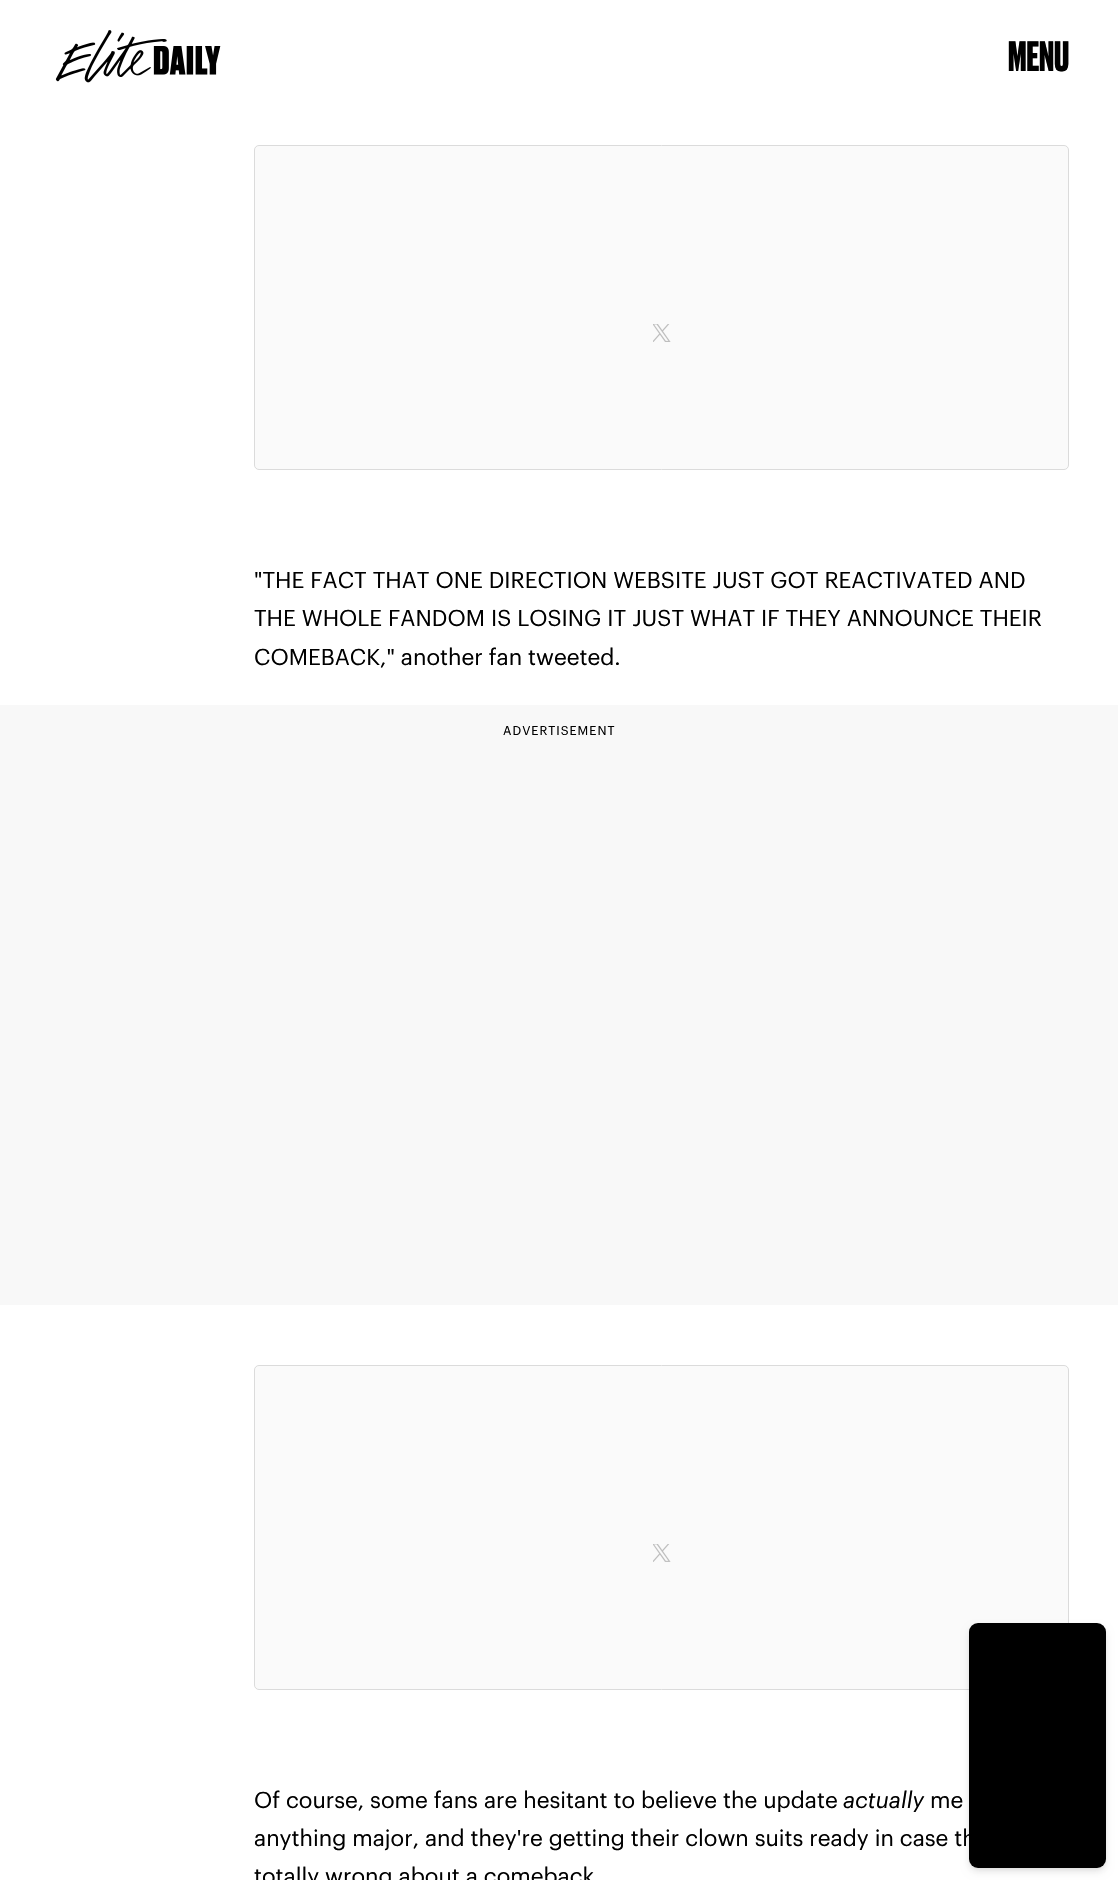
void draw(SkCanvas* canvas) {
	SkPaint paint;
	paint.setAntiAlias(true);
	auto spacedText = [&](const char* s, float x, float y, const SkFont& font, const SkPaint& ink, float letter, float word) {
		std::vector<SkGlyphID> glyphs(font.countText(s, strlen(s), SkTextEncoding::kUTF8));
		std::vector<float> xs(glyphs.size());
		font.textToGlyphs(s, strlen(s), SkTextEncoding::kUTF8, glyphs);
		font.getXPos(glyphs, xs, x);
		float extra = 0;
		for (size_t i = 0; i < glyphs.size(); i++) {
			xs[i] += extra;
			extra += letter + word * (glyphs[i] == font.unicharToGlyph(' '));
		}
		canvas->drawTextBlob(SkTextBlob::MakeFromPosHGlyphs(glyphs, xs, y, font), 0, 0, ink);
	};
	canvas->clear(0xffffffff);
	canvas->drawImageRect(SkImages::DeferredFromEncodedData(SkData::MakeFromFileName("img1.png")), SkRect::MakeXYWH(55, 30, 166, 53), SkSamplingOptions());
	SkFont f1(fontMgr->matchFamilyStyle("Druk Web", SkFontStyle::Bold()), 40);
	f1.setSubpixel(true);
	paint.setColor(0xff000000);
	canvas->drawString("MENU", 1008, 71, f1, paint);
	paint.setColor(0xfffafafa);
	canvas->drawRoundRect(SkRect::MakeXYWH(254.5, 145.5, 814, 324), 4.5, 4.5, paint);
	paint.setStroke(true);
	paint.setStrokeWidth(1);
	paint.setColor(0xffdbdbdb);
	canvas->drawRoundRect(SkRect::MakeXYWH(254.5, 145.5, 814, 324), 4.5, 4.5, paint);
	canvas->drawImageRect(SkImages::DeferredFromEncodedData(SkData::MakeFromFileName("img2.png")), SkRect::MakeXYWH(653, 324, 18, 18), SkSamplingOptions());
	SkFont f2(fontMgr->matchFamilyStyle("Graphik", SkFontStyle::Normal()), 22.5);
	f2.setSubpixel(true);
	paint.setStroke(false);
	paint.setColor(0xff000000);
	canvas->drawString("\"THE FACT THAT ONE DIRECTION WEBSITE JUST GOT REACTIVATED AND", 254, 588, f2, paint);
	canvas->drawString("THE WHOLE FANDOM IS LOSING IT JUST WHAT IF THEY ANNOUNCE THEIR", 254, 626, f2, paint);
	canvas->drawString("COMEBACK,\" another fan tweeted.", 254, 665, f2, paint);
	paint.setColor(0xfff8f8f8);
	canvas->drawRect(SkRect::MakeXYWH(0, 705, 1118, 600), paint);
	SkFont f3(fontMgr->matchFamilyStyle("Graphik", SkFontStyle::Normal()), 12.5);
	f3.setSubpixel(true);
	paint.setColor(0xff000000);
	spacedText("ADVERTISEMENT", 503, 735, f3, paint, 1, 0);
	paint.setColor(0xfffafafa);
	canvas->drawRoundRect(SkRect::MakeXYWH(254.5, 1365.5, 814, 324), 4.5, 4.5, paint);
	paint.setStroke(true);
	paint.setColor(0xffdbdbdb);
	canvas->drawRoundRect(SkRect::MakeXYWH(254.5, 1365.5, 814, 324), 4.5, 4.5, paint);
	canvas->drawImageRect(SkImages::DeferredFromEncodedData(SkData::MakeFromFileName("img3.png")), SkRect::MakeXYWH(653, 1544, 18, 18), SkSamplingOptions());
	paint.setStroke(false);
	paint.setColor(0xff000000);
	canvas->drawString("Of course, some fans are hesitant to believe the update", 254, 1808, f2, paint);
	SkFont f4(fontMgr->matchFamilyStyle("Graphik", SkFontStyle::Italic()), 22.5);
	f4.setSubpixel(true);
	canvas->drawString("actually", 843, 1808, f4, paint);
	canvas->drawString("me", 930, 1808, f2, paint);
	canvas->drawString("anything major, and they're getting their clown suits ready in case th", 254, 1846, f2, paint);
	canvas->drawString("totally wrong about a comeback", 254, 1884, f2, paint);
	paint.setColor(0x1a000000);
	paint.setMaskFilter(SkMaskFilter::MakeBlur(kNormal_SkBlurStyle, 2.5));
	canvas->drawRoundRect(SkRect::MakeXYWH(971, 1628, 133, 240), 6, 6, paint);
	paint.setMaskFilter(nullptr);
	paint.setMaskFilter(SkMaskFilter::MakeBlur(kNormal_SkBlurStyle, 4));
	canvas->drawRoundRect(SkRect::MakeXYWH(970, 1629, 135, 242), 8, 8, paint);
	paint.setMaskFilter(nullptr);
	paint.setColor(0xff000000);
	canvas->drawRoundRect(SkRect::MakeXYWH(969, 1623, 137, 245), 9, 9, paint);
}
